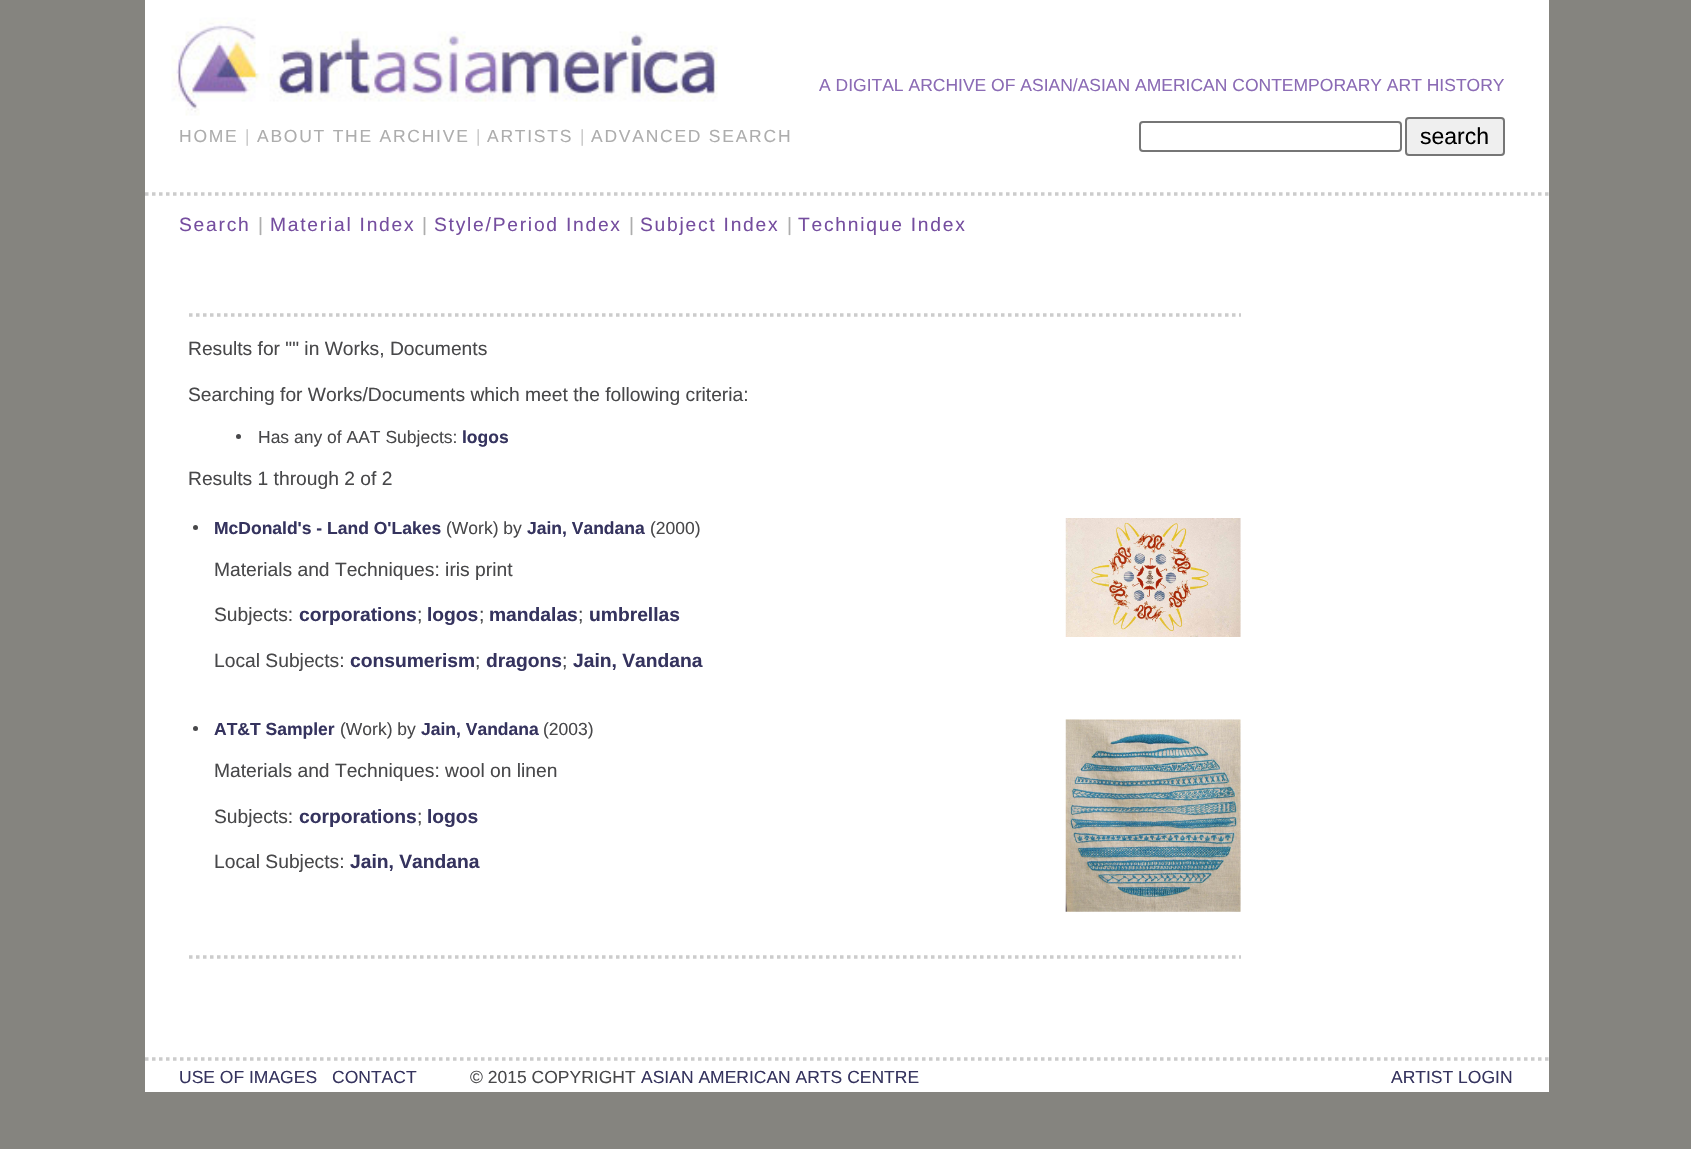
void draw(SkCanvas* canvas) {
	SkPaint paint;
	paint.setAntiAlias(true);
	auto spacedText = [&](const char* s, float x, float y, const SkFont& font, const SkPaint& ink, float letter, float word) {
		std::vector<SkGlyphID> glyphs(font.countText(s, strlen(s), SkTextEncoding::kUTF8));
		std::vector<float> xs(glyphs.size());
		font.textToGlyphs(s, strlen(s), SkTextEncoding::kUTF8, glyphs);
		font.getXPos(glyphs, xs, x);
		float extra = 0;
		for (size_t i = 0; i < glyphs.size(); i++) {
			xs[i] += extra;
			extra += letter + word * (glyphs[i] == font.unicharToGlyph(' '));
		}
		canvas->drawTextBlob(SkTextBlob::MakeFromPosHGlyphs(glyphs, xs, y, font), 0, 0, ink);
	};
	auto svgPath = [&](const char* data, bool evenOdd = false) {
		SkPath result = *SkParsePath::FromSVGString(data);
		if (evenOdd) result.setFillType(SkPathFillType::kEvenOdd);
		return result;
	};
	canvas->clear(0xff85847f);
	paint.setColor(0xffffffff);
	canvas->drawRect(SkRect::MakeXYWH(145, 0, 1404, 1092), paint);
	canvas->drawImageRect(SkImages::DeferredFromEncodedData(SkData::MakeFromFileName("img1.png")), SkRect::MakeXYWH(171, 17, 547, 99), SkSamplingOptions());
	SkFont f1(fontMgr->matchFamilyStyle("Liberation Sans", SkFontStyle::Normal()), 17.5);
	f1.setSubpixel(true);
	paint.setColor(0xff8b6bb5);
	canvas->drawString("A DIGITAL ARCHIVE OF ASIAN/ASIAN AMERICAN CONTEMPORARY ART HISTORY", 819, 91, f1, paint);
	paint.setColor(0xffadadad);
	spacedText("HOME", 179, 142, f1, paint, 1.75, 0);
	paint.setColor(0xffcccccc);
	spacedText("|", 245, 142, f1, paint, 1.75, 0);
	paint.setColor(0xffadadad);
	spacedText("ABOUT THE ARCHIVE", 257, 142, f1, paint, 1.75, 0);
	paint.setColor(0xffcccccc);
	spacedText("|", 476, 142, f1, paint, 1.75, 0);
	paint.setColor(0xffadadad);
	spacedText("ARTISTS", 487, 142, f1, paint, 1.75, 0);
	paint.setColor(0xffcccccc);
	spacedText("|", 580, 142, f1, paint, 1.75, 0);
	paint.setColor(0xffadadad);
	spacedText("ADVANCED SEARCH", 591, 142, f1, paint, 1.75, 0);
	paint.setStroke(true);
	paint.setStrokeWidth(2);
	paint.setColor(0xff767676);
	canvas->drawRoundRect(SkRect::MakeXYWH(1140, 122, 261, 29), 3, 3, paint);
	paint.setStroke(false);
	paint.setColor(0xffefefef);
	canvas->drawRoundRect(SkRect::MakeXYWH(1406, 118, 98, 37), 3, 3, paint);
	paint.setStroke(true);
	paint.setColor(0xff767676);
	canvas->drawRoundRect(SkRect::MakeXYWH(1406, 118, 98, 37), 3, 3, paint);
	SkFont f2(fontMgr->matchFamilyStyle("Liberation Sans", SkFontStyle::Normal()), 23);
	f2.setSubpixel(true);
	paint.setStroke(false);
	paint.setColor(0xff000000);
	canvas->drawString("search", 1420, 144, f2, paint);
	paint.setStroke(true);
	paint.setStrokeWidth(3.5);
	paint.setColor(0xffcccccc);
	paint.setPathEffect(SkDashPathEffect::Make({{3.5f, 3.5f}}, 0));
	canvas->drawPath(svgPath("M145 194H1549"), paint);
	paint.setPathEffect(nullptr);
	SkFont f3(fontMgr->matchFamilyStyle("Liberation Sans", SkFontStyle::Normal()), 19.25);
	f3.setSubpixel(true);
	paint.setStroke(false);
	paint.setColor(0xff754e9f);
	spacedText("Search", 179, 231, f3, paint, 1.75, 0);
	paint.setColor(0xffadadad);
	spacedText("|", 258, 231, f3, paint, 1.75, 0);
	paint.setColor(0xff754e9f);
	spacedText("Material Index", 270, 231, f3, paint, 1.75, 0);
	paint.setColor(0xffadadad);
	spacedText("|", 422, 231, f3, paint, 1.75, 0);
	paint.setColor(0xff754e9f);
	spacedText("Style/Period Index", 434, 231, f3, paint, 1.75, 0);
	paint.setColor(0xffadadad);
	spacedText("|", 629, 231, f3, paint, 1.75, 0);
	paint.setColor(0xff754e9f);
	spacedText("Subject Index", 640, 231, f3, paint, 1.75, 0);
	paint.setColor(0xffadadad);
	spacedText("|", 787, 231, f3, paint, 1.75, 0);
	paint.setColor(0xff754e9f);
	spacedText("Technique Index", 798, 231, f3, paint, 1.75, 0);
	paint.setStroke(true);
	paint.setColor(0xffcccccc);
	paint.setPathEffect(SkDashPathEffect::Make({{3.5f, 3.5f}}, 0));
	canvas->drawPath(svgPath("M189 315H1241"), paint);
	paint.setPathEffect(nullptr);
	paint.setStroke(false);
	paint.setColor(0xff48484a);
	canvas->drawString("Results for \"\" in Works, Documents", 188, 355, f3, paint);
	canvas->drawString("Searching for Works/Documents which meet the following criteria:", 188, 401, f3, paint);
	canvas->drawCircle(238.5, 436.5, 2.5, paint);
	canvas->drawString("Has any of AAT Subjects:", 258, 443, f1, paint);
	SkFont f4(fontMgr->matchFamilyStyle("Liberation Sans", SkFontStyle::Bold()), 17.5);
	f4.setSubpixel(true);
	paint.setColor(0xff35335e);
	canvas->drawString("logos", 462, 443, f4, paint);
	paint.setColor(0xff48484a);
	canvas->drawString("Results 1 through 2 of 2", 188, 485, f3, paint);
	canvas->drawCircle(195.5, 527.5, 2.5, paint);
	paint.setColor(0xff35335e);
	canvas->drawString("McDonald's - Land O'Lakes", 214, 534, f4, paint);
	paint.setColor(0xff48484a);
	canvas->drawString("(Work) by", 446, 534, f1, paint);
	paint.setColor(0xff35335e);
	canvas->drawString("Jain, Vandana", 527, 534, f4, paint);
	paint.setColor(0xff48484a);
	canvas->drawString("(2000)", 650, 534, f1, paint);
	canvas->drawImageRect(SkImages::DeferredFromEncodedData(SkData::MakeFromFileName("img2.png")), SkRect::MakeXYWH(1065, 518, 176, 119), SkSamplingOptions());
	canvas->drawString("Materials and Techniques: iris print", 214, 576, f3, paint);
	canvas->drawString("Subjects:", 214, 621, f3, paint);
	SkFont f5(fontMgr->matchFamilyStyle("Liberation Sans", SkFontStyle::Bold()), 19.25);
	f5.setSubpixel(true);
	paint.setColor(0xff35335e);
	canvas->drawString("corporations", 299, 621, f5, paint);
	paint.setColor(0xff48484a);
	canvas->drawString(";", 417, 621, f3, paint);
	paint.setColor(0xff35335e);
	canvas->drawString("logos", 427, 621, f5, paint);
	paint.setColor(0xff48484a);
	canvas->drawString(";", 479, 621, f3, paint);
	paint.setColor(0xff35335e);
	canvas->drawString("mandalas", 489, 621, f5, paint);
	paint.setColor(0xff48484a);
	canvas->drawString(";", 578, 621, f3, paint);
	paint.setColor(0xff35335e);
	canvas->drawString("umbrellas", 589, 621, f5, paint);
	paint.setColor(0xff48484a);
	canvas->drawString("Local Subjects:", 214, 667, f3, paint);
	paint.setColor(0xff35335e);
	canvas->drawString("consumerism", 350, 667, f5, paint);
	paint.setColor(0xff48484a);
	canvas->drawString(";", 475, 667, f3, paint);
	paint.setColor(0xff35335e);
	canvas->drawString("dragons", 486, 667, f5, paint);
	paint.setColor(0xff48484a);
	canvas->drawString(";", 562, 667, f3, paint);
	paint.setColor(0xff35335e);
	canvas->drawString("Jain, Vandana", 573, 667, f5, paint);
	paint.setColor(0xff48484a);
	canvas->drawCircle(195.5, 728.5, 2.5, paint);
	paint.setColor(0xff35335e);
	canvas->drawString("AT&T Sampler", 214, 735, f4, paint);
	paint.setColor(0xff48484a);
	canvas->drawString("(Work) by", 340, 735, f1, paint);
	paint.setColor(0xff35335e);
	canvas->drawString("Jain, Vandana", 421, 735, f4, paint);
	paint.setColor(0xff48484a);
	canvas->drawString("(2003)", 543, 735, f1, paint);
	canvas->drawImageRect(SkImages::DeferredFromEncodedData(SkData::MakeFromFileName("img3.png")), SkRect::MakeXYWH(1065, 719, 176, 193), SkSamplingOptions());
	canvas->drawString("Materials and Techniques: wool on linen", 214, 777, f3, paint);
	canvas->drawString("Subjects:", 214, 823, f3, paint);
	paint.setColor(0xff35335e);
	canvas->drawString("corporations", 299, 823, f5, paint);
	paint.setColor(0xff48484a);
	canvas->drawString(";", 417, 823, f3, paint);
	paint.setColor(0xff35335e);
	canvas->drawString("logos", 427, 823, f5, paint);
	paint.setColor(0xff48484a);
	canvas->drawString("Local Subjects:", 214, 868, f3, paint);
	paint.setColor(0xff35335e);
	canvas->drawString("Jain, Vandana", 350, 868, f5, paint);
	paint.setStroke(true);
	paint.setColor(0xffcccccc);
	paint.setPathEffect(SkDashPathEffect::Make({{3.5f, 3.5f}}, 0));
	canvas->drawPath(svgPath("M189 957H1241"), paint);
	paint.setPathEffect(nullptr);
	paint.setPathEffect(SkDashPathEffect::Make({{3.5f, 3.5f}}, 0));
	canvas->drawPath(svgPath("M145 1059H1549"), paint);
	paint.setPathEffect(nullptr);
	paint.setStroke(false);
	paint.setColor(0xff35335e);
	canvas->drawString("USE OF IMAGES", 179, 1083, f1, paint);
	canvas->drawString("CONTACT", 332, 1083, f1, paint);
	paint.setColor(0xff48484a);
	canvas->drawString("© 2015 COPYRIGHT", 470, 1083, f1, paint);
	paint.setColor(0xff35335e);
	canvas->drawString("ASIAN AMERICAN ARTS CENTRE", 641, 1083, f1, paint);
	canvas->drawString("ARTIST LOGIN", 1391, 1083, f1, paint);
}
